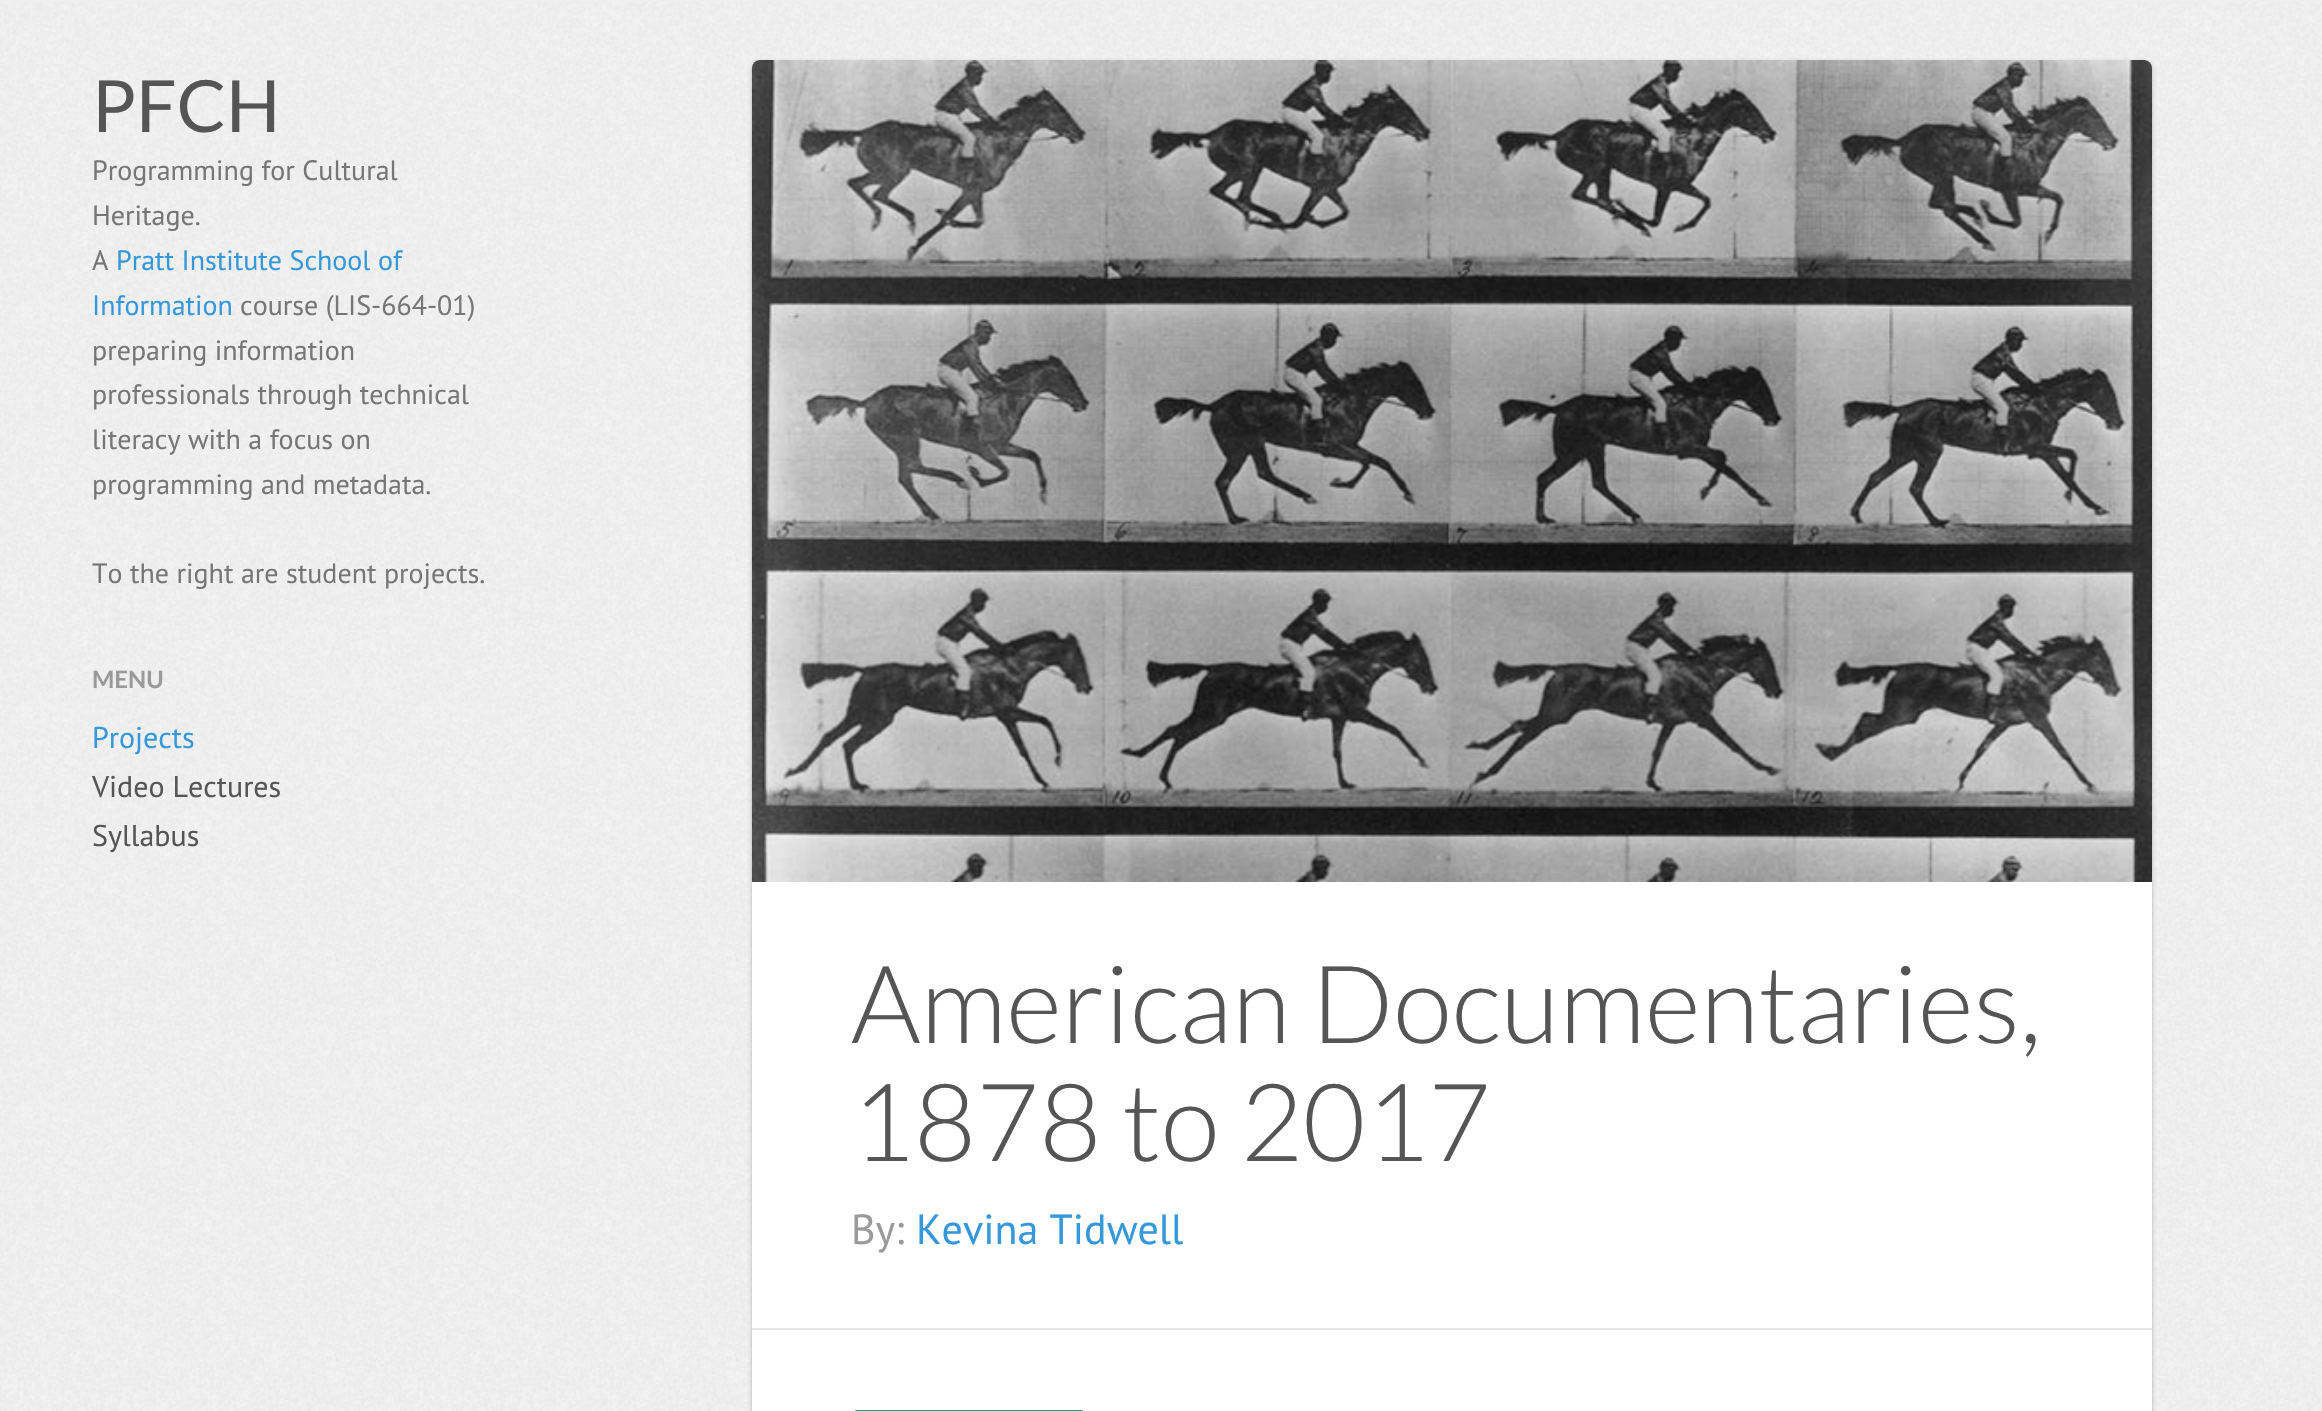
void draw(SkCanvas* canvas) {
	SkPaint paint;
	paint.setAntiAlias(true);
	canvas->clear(0xffefefef);
	canvas->drawImageRect(SkImages::DeferredFromEncodedData(SkData::MakeFromFileName("img1.png")), SkRect::MakeXYWH(0, 2, 2322, 1409), SkSamplingOptions());
	SkFont f1(fontMgr->matchFamilyStyle("Lato", SkFontStyle::Normal()), 72);
	f1.setSubpixel(true);
	paint.setColor(0xff555555);
	canvas->drawString("PFCH", 92, 132, f1, paint);
	SkFont f2(fontMgr->matchFamilyStyle("PT Sans", SkFontStyle::Normal()), 28);
	f2.setSubpixel(true);
	paint.setColor(0xff767676);
	canvas->drawString("Programming for Cultural", 92, 180, f2, paint);
	canvas->drawString("Heritage.", 92, 225, f2, paint);
	canvas->drawString("A", 92, 270, f2, paint);
	paint.setColor(0xff3498db);
	canvas->drawString("Pratt Institute School of", 116, 270, f2, paint);
	canvas->drawString("Information", 92, 315, f2, paint);
	paint.setColor(0xff767676);
	canvas->drawString("course (LIS-664-01)", 240, 315, f2, paint);
	canvas->drawString("preparing information", 92, 360, f2, paint);
	canvas->drawString("professionals through technical", 92, 404, f2, paint);
	canvas->drawString("literacy with a focus on", 92, 449, f2, paint);
	canvas->drawString("programming and metadata.", 92, 494, f2, paint);
	canvas->drawString("To the right are student projects.", 92, 583, f2, paint);
	SkFont f3(fontMgr->matchFamilyStyle("Lato", SkFontStyle::Bold()), 24);
	f3.setSubpixel(true);
	paint.setColor(0xff9a9a9a);
	canvas->drawString("MENU", 92, 688, f3, paint);
	SkFont f4(fontMgr->matchFamilyStyle("PT Sans", SkFontStyle::Normal()), 30);
	f4.setSubpixel(true);
	paint.setColor(0xff3498db);
	canvas->drawString("Projects", 92, 748, f4, paint);
	paint.setColor(0xff555555);
	canvas->drawString("Video Lectures", 92, 797, f4, paint);
	canvas->drawString("Syllabus", 92, 846, f4, paint);
	paint.setColor(0x40000000);
	paint.setMaskFilter(SkMaskFilter::MakeBlur(kNormal_SkBlurStyle, 2));
	canvas->drawRoundRect(SkRect::MakeXYWH(752, 62, 1400, 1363), 8, 8, paint);
	paint.setMaskFilter(nullptr);
	paint.setColor(0xffffffff);
	canvas->drawRoundRect(SkRect::MakeXYWH(752, 60, 1400, 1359), 8, 8, paint);
	paint.setColor(0xffe6e6e6);
	canvas->drawRect(SkRect::MakeXYWH(752, 1328, 1400, 2), paint);
	canvas->drawImageRect(SkImages::DeferredFromEncodedData(SkData::MakeFromFileName("img2.png")), SkRect::MakeXYWH(752, 60, 1400, 822), SkSamplingOptions());
	SkFont f5(fontMgr->matchFamilyStyle("Lato", SkFontStyle(300, SkFontStyle::kNormal_Width, SkFontStyle::kUpright_Slant)), 108);
	f5.setSubpixel(true);
	paint.setColor(0xff555555);
	canvas->drawString("American Documentaries,", 851, 1043, f5, paint);
	canvas->drawString("1878 to 2017", 851, 1161, f5, paint);
	SkFont f6(fontMgr->matchFamilyStyle("PT Sans", SkFontStyle::Normal()), 42);
	f6.setSubpixel(true);
	paint.setColor(0xff9a9a9a);
	canvas->drawString("By:", 851, 1244, f6, paint);
	paint.setColor(0xff3498db);
	canvas->drawString("Kevina Tidwell", 916, 1244, f6, paint);
	paint.setStroke(true);
	paint.setStrokeWidth(2);
	paint.setColor(0xff16a085);
	canvas->drawRoundRect(SkRect::MakeXYWH(853, 1411, 232, 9), 7, 7, paint);
}
